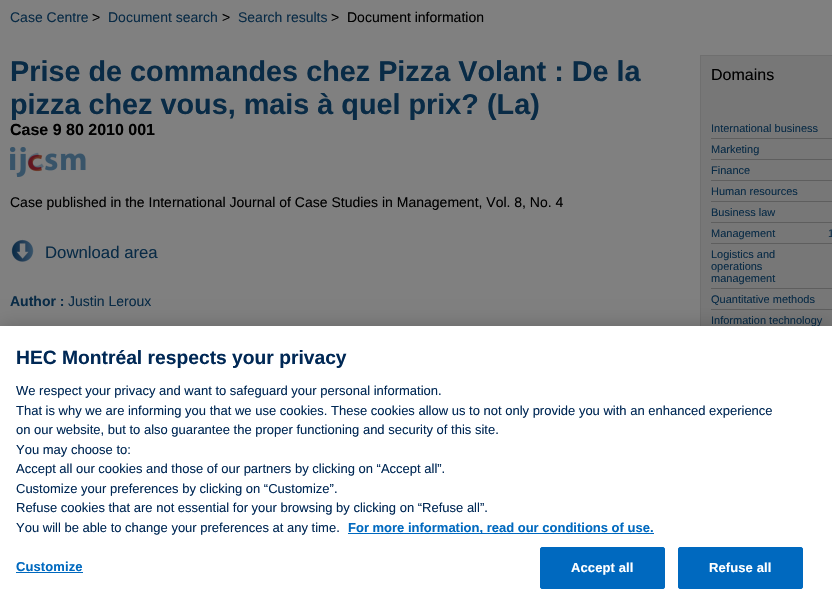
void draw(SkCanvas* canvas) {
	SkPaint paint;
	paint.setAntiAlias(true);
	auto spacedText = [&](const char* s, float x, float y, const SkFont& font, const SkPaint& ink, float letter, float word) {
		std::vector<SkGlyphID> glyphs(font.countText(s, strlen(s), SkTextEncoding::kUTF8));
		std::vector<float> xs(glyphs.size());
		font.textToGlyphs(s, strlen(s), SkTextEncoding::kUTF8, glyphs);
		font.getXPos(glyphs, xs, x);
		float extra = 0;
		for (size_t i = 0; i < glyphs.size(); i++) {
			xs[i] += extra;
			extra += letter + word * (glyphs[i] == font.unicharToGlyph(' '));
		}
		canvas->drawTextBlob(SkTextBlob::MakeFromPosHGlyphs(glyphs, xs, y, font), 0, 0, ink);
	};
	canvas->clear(0xff808080);
	SkFont f1(fontMgr->matchFamilyStyle("Liberation Sans", SkFontStyle::Normal()), 14);
	f1.setSubpixel(true);
	paint.setColor(0xff092b46);
	canvas->drawString("Case Centre", 10, 22, f1, paint);
	paint.setColor(0xff000000);
	canvas->drawString(">", 92, 22, f1, paint);
	paint.setColor(0xff092b46);
	canvas->drawString("Document search", 108, 22, f1, paint);
	paint.setColor(0xff000000);
	canvas->drawString(">", 222, 22, f1, paint);
	paint.setColor(0xff092b46);
	canvas->drawString("Search results", 238, 22, f1, paint);
	paint.setColor(0xff000000);
	canvas->drawString(">", 331, 22, f1, paint);
	canvas->drawString("Document information", 347, 22, f1, paint);
	SkFont f2(fontMgr->matchFamilyStyle("Liberation Sans", SkFontStyle::Bold()), 28.8);
	f2.setSubpixel(true);
	paint.setColor(0xff092b46);
	canvas->drawString("Prise de commandes chez Pizza Volant : De la", 10, 81, f2, paint);
	canvas->drawString("pizza chez vous, mais à quel prix? (La)", 10, 114, f2, paint);
	SkFont f3(fontMgr->matchFamilyStyle("Liberation Sans", SkFontStyle::Bold()), 16);
	f3.setSubpixel(true);
	paint.setColor(0xff000000);
	canvas->drawString("Case 9 80 2010 001", 10, 135, f3, paint);
	canvas->drawImageRect(SkImages::DeferredFromEncodedData(SkData::MakeFromFileName("img1.png")), SkRect::MakeXYWH(10, 147, 76, 30), SkSamplingOptions());
	canvas->drawString("Case published in the International Journal of Case Studies in Management, Vol. 8, No. 4", 10, 207, f1, paint);
	canvas->drawImageRect(SkImages::DeferredFromEncodedData(SkData::MakeFromFileName("img2.png")), SkRect::MakeXYWH(11, 239, 23, 23), SkSamplingOptions());
	SkFont f4(fontMgr->matchFamilyStyle("Liberation Sans", SkFontStyle::Normal()), 16.75);
	f4.setSubpixel(true);
	paint.setColor(0xff092b46);
	canvas->drawString("Download area", 45, 258, f4, paint);
	SkFont f5(fontMgr->matchFamilyStyle("Liberation Sans", SkFontStyle::Bold()), 14);
	f5.setSubpixel(true);
	canvas->drawString("Author :", 10, 306, f5, paint);
	canvas->drawString("Justin Leroux", 68, 306, f1, paint);
	paint.setColor(0xff777777);
	canvas->drawRect(SkRect::MakeXYWH(701, 56, 131, 270), paint);
	paint.setStroke(true);
	paint.setStrokeWidth(1);
	paint.setColor(0xff6f6f6f);
	canvas->drawRect(SkRect::MakeXYWH(700.5, 55.5, 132, 403), paint);
	SkFont f6(fontMgr->matchFamilyStyle("Liberation Sans", SkFontStyle::Normal()), 16);
	f6.setSubpixel(true);
	paint.setStroke(false);
	paint.setColor(0xff000000);
	canvas->drawString("Domains", 711, 80, f6, paint);
	SkFont f7(fontMgr->matchFamilyStyle("Liberation Sans", SkFontStyle::Normal()), 11);
	f7.setSubpixel(true);
	paint.setColor(0xff092b46);
	canvas->drawString("International business", 711, 132, f7, paint);
	paint.setColor(0xff5e5e5e);
	canvas->drawRect(SkRect::MakeXYWH(711, 138, 121, 1), paint);
	paint.setColor(0xff092b46);
	canvas->drawString("Marketing", 711, 153, f7, paint);
	paint.setColor(0xff5e5e5e);
	canvas->drawRect(SkRect::MakeXYWH(711, 159, 121, 1), paint);
	paint.setColor(0xff092b46);
	canvas->drawString("Finance", 711, 174, f7, paint);
	paint.setColor(0xff5e5e5e);
	canvas->drawRect(SkRect::MakeXYWH(711, 180, 121, 1), paint);
	paint.setColor(0xff092b46);
	canvas->drawString("Human resources", 711, 195, f7, paint);
	paint.setColor(0xff5e5e5e);
	canvas->drawRect(SkRect::MakeXYWH(711, 201, 121, 1), paint);
	paint.setColor(0xff092b46);
	canvas->drawString("Business law", 711, 216, f7, paint);
	paint.setColor(0xff5e5e5e);
	canvas->drawRect(SkRect::MakeXYWH(711, 222, 121, 1), paint);
	paint.setColor(0xff092b46);
	canvas->drawString("Management", 711, 237, f7, paint);
	paint.setColor(0xff5e5e5e);
	canvas->drawRect(SkRect::MakeXYWH(711, 243, 121, 1), paint);
	paint.setColor(0xff092b46);
	canvas->drawString("1", 828, 237, f7, paint);
	canvas->drawString("Logistics and", 711, 258, f7, paint);
	canvas->drawString("operations", 711, 270, f7, paint);
	canvas->drawString("management", 711, 282, f7, paint);
	paint.setColor(0xff5e5e5e);
	canvas->drawRect(SkRect::MakeXYWH(711, 288, 121, 1), paint);
	paint.setColor(0xff092b46);
	canvas->drawString("Quantitative methods", 711, 303, f7, paint);
	paint.setColor(0xff5e5e5e);
	canvas->drawRect(SkRect::MakeXYWH(711, 309, 121, 1), paint);
	paint.setColor(0xff092b46);
	canvas->drawString("Information technology", 711, 324, f7, paint);
	paint.setColor(0x33000000);
	paint.setMaskFilter(SkMaskFilter::MakeBlur(kNormal_SkBlurStyle, 9));
	canvas->drawRect(SkRect::MakeXYWH(0, 326, 832, 283), paint);
	paint.setMaskFilter(nullptr);
	paint.setColor(0xffffffff);
	canvas->drawRect(SkRect::MakeXYWH(0, 326, 832, 283), paint);
	SkFont f8(fontMgr->matchFamilyStyle("Liberation Sans", SkFontStyle::Bold()), 19.25);
	f8.setSubpixel(true);
	paint.setColor(0xff002855);
	canvas->drawString("HEC Montréal respects your privacy", 16, 364, f8, paint);
	SkFont f9(fontMgr->matchFamilyStyle("Liberation Sans", SkFontStyle::Normal()), 13);
	f9.setSubpixel(true);
	canvas->drawString("We respect your privacy and want to safeguard your personal information.", 16, 395, f9, paint);
	canvas->drawString("That is why we are informing you that we use cookies. These cookies allow us to not only provide you with an enhanced experience", 16, 415, f9, paint);
	canvas->drawString("on our website, but to also guarantee the proper functioning and security of this site.", 16, 434, f9, paint);
	canvas->drawString("You may choose to:", 16, 454, f9, paint);
	canvas->drawString("Accept all our cookies and those of our partners by clicking on “Accept all”.", 16, 473, f9, paint);
	canvas->drawString("Customize your preferences by clicking on “Customize”.", 16, 493, f9, paint);
	canvas->drawString("Refuse cookies that are not essential for your browsing by clicking on “Refuse all”.", 16, 512, f9, paint);
	canvas->drawString("You will be able to change your preferences at any time.", 16, 532, f9, paint);
	paint.setColor(0xff0069bf);
	canvas->drawRect(SkRect::MakeXYWH(348, 533, 306, 1), paint);
	SkFont f10(fontMgr->matchFamilyStyle("Liberation Sans", SkFontStyle::Bold()), 13);
	f10.setSubpixel(true);
	canvas->drawString("For more information, read our conditions of use.", 348, 532, f10, paint);
	spacedText("Customize", 16, 571, f10, paint, 0.1, 0);
	canvas->drawRect(SkRect::MakeXYWH(16, 572, 67, 1), paint);
	canvas->drawRoundRect(SkRect::MakeXYWH(540.5, 547.5, 124, 41), 1.5, 1.5, paint);
	paint.setStroke(true);
	canvas->drawRoundRect(SkRect::MakeXYWH(540.5, 547.5, 124, 41), 1.5, 1.5, paint);
	paint.setStroke(false);
	paint.setColor(0xffffffff);
	spacedText("Accept all", 571, 572, f10, paint, 0.1, 0);
	paint.setColor(0xff0069bf);
	canvas->drawRoundRect(SkRect::MakeXYWH(678.5, 547.5, 124, 41), 1.5, 1.5, paint);
	paint.setStroke(true);
	canvas->drawRoundRect(SkRect::MakeXYWH(678.5, 547.5, 124, 41), 1.5, 1.5, paint);
	paint.setStroke(false);
	paint.setColor(0xffffffff);
	spacedText("Refuse all", 709, 572, f10, paint, 0.1, 0);
}
